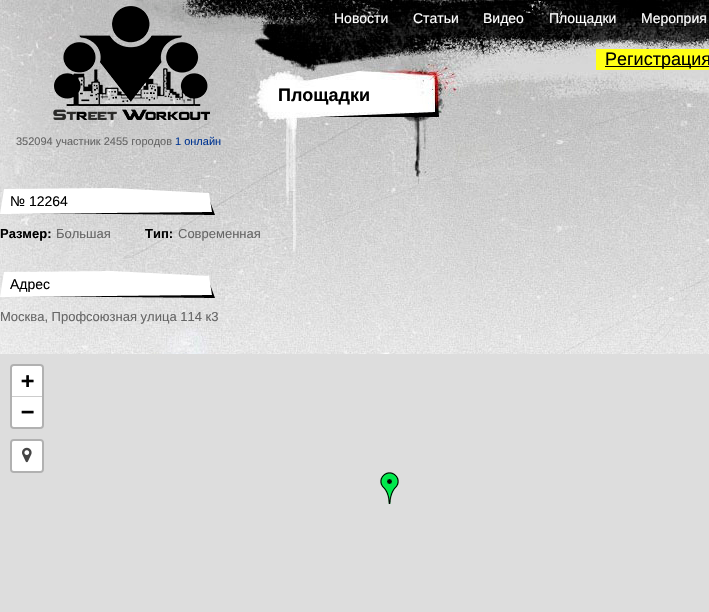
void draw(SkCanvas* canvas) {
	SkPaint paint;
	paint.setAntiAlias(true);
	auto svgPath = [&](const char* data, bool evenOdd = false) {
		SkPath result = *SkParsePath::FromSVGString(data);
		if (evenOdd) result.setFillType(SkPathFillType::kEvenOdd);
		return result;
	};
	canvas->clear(0xffffffff);
	canvas->drawImageRect(SkImages::DeferredFromEncodedData(SkData::MakeFromFileName("img1.png")), SkRect::MakeXYWH(0, 0, 709, 354), SkSamplingOptions());
	SkFont f1(fontMgr->matchFamilyStyle("Liberation Sans", SkFontStyle::Normal()), 14);
	f1.setSubpixel(true);
	paint.setColor(0xffffffff);
	canvas->drawString("Новости", 334, 23, f1, paint);
	canvas->drawString("Статьи", 413, 23, f1, paint);
	canvas->drawString("Видео", 483, 23, f1, paint);
	canvas->drawString("Площадки", 549, 23, f1, paint);
	canvas->drawString("Мероприя", 641, 23, f1, paint);
	paint.setColor(0xffffff16);
	canvas->drawRect(SkRect::MakeXYWH(596, 49, 113, 21), paint);
	paint.setColor(0xff000000);
	canvas->drawRect(SkRect::MakeXYWH(605, 66, 104, 1), paint);
	SkFont f2(fontMgr->matchFamilyStyle("Liberation Sans", SkFontStyle::Normal()), 18);
	f2.setSubpixel(true);
	canvas->drawString("Регистрация", 605, 65, f2, paint);
	SkFont f3(fontMgr->matchFamilyStyle("Liberation Sans", SkFontStyle::Bold()), 18);
	f3.setSubpixel(true);
	canvas->drawString("Площадки", 278, 101, f3, paint);
	SkFont f4(fontMgr->matchFamilyStyle("Liberation Sans", SkFontStyle::Normal()), 11);
	f4.setSubpixel(true);
	paint.setColor(0xff666666);
	canvas->drawString("352094 участник 2455 городов", 16, 145, f4, paint);
	paint.setColor(0xff003592);
	canvas->drawString("1 онлайн", 175, 145, f4, paint);
	canvas->drawImageRect(SkImages::DeferredFromEncodedData(SkData::MakeFromFileName("img2.png")), SkRect::MakeXYWH(0, 188, 215, 27), SkSamplingOptions());
	paint.setColor(0xff000000);
	canvas->drawString("№ 12264", 10, 206, f1, paint);
	SkFont f5(fontMgr->matchFamilyStyle("Liberation Sans", SkFontStyle::Bold()), 13);
	f5.setSubpixel(true);
	canvas->drawString("Размер:", 0, 238, f5, paint);
	SkFont f6(fontMgr->matchFamilyStyle("Liberation Sans", SkFontStyle::Normal()), 13);
	f6.setSubpixel(true);
	paint.setColor(0xff666666);
	canvas->drawString("Большая", 56, 238, f6, paint);
	paint.setColor(0xff000000);
	canvas->drawString("Тип:", 145, 238, f5, paint);
	paint.setColor(0xff666666);
	canvas->drawString("Современная", 178, 238, f6, paint);
	canvas->drawImageRect(SkImages::DeferredFromEncodedData(SkData::MakeFromFileName("img3.png")), SkRect::MakeXYWH(0, 271, 215, 27), SkSamplingOptions());
	paint.setColor(0xff000000);
	canvas->drawString("Адрес", 10, 289, f1, paint);
	paint.setColor(0xff666666);
	canvas->drawString("Москва, Профсоюзная улица 114 к3", 0, 321, f6, paint);
	paint.setColor(0xffdddddd);
	canvas->drawRect(SkRect::MakeXYWH(0, 354, 709, 258), paint);
	paint.setStroke(true);
	paint.setStrokeWidth(2);
	paint.setColor(0xffb1b1b1);
	canvas->drawRoundRect(SkRect::MakeXYWH(11, 365, 32, 63), 3, 3, paint);
	paint.setStroke(false);
	paint.setColor(0xffffffff);
	canvas->drawPath(svgPath("M14 366H40C41 366 42 367 42 368V397H12V368C12 367 13 366 14 366Z"), paint);
	paint.setColor(0xffcccccc);
	canvas->drawRect(SkRect::MakeXYWH(12, 396, 30, 1), paint);
	SkFont f7(fontMgr->matchFamilyStyle("DejaVu Sans Mono", SkFontStyle::Bold()), 22);
	f7.setSubpixel(true);
	paint.setColor(0xff000000);
	canvas->drawString("+", 21, 388, f7, paint);
	paint.setColor(0xffffffff);
	canvas->drawPath(svgPath("M12 397H42V425C42 426 41 427 40 427H14C13 427 12 426 12 425Z"), paint);
	paint.setColor(0xff000000);
	canvas->drawString("−", 21, 419, f7, paint);
	paint.setStroke(true);
	paint.setColor(0xffb1b1b1);
	canvas->drawRoundRect(SkRect::MakeXYWH(11, 440, 32, 32), 3, 3, paint);
	paint.setStroke(false);
	paint.setColor(0xffffffff);
	canvas->drawRoundRect(SkRect::MakeXYWH(12, 441, 30, 30), 2, 2, paint);
	canvas->drawImageRect(SkImages::DeferredFromEncodedData(SkData::MakeFromFileName("img4.png")), SkRect::MakeXYWH(22, 447, 10, 16), SkSamplingOptions());
	canvas->drawImageRect(SkImages::DeferredFromEncodedData(SkData::MakeFromFileName("img5.png")), SkRect::MakeXYWH(380, 472, 19, 32), SkSamplingOptions());
}
